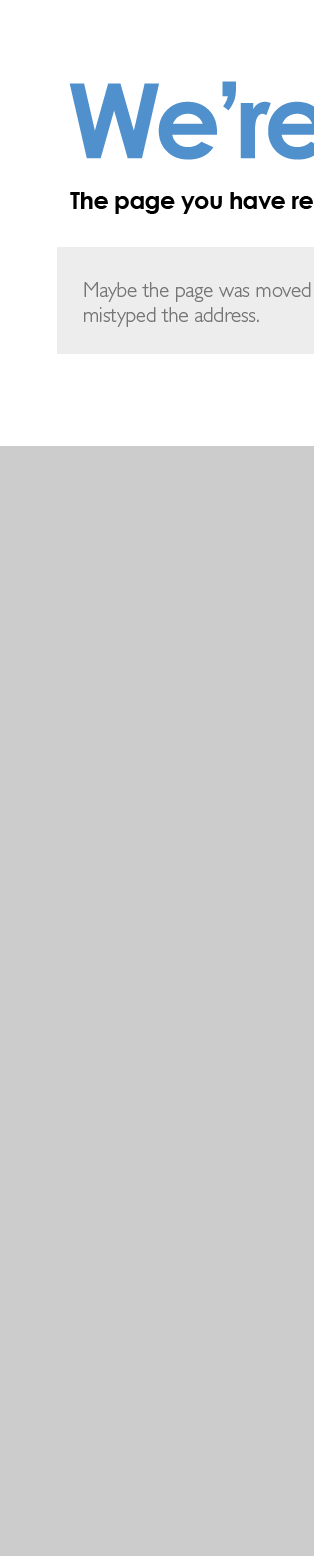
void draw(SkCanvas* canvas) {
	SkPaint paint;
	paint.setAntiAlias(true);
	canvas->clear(0xffcccccc);
	paint.setColor(0xffffffff);
	canvas->drawRect(SkRect::MakeXYWH(0, 0, 314, 446), paint);
	canvas->drawImageRect(SkImages::DeferredFromEncodedData(SkData::MakeFromFileName("img1.png")), SkRect::MakeXYWH(57, 81, 257, 273), SkSamplingOptions());
}
